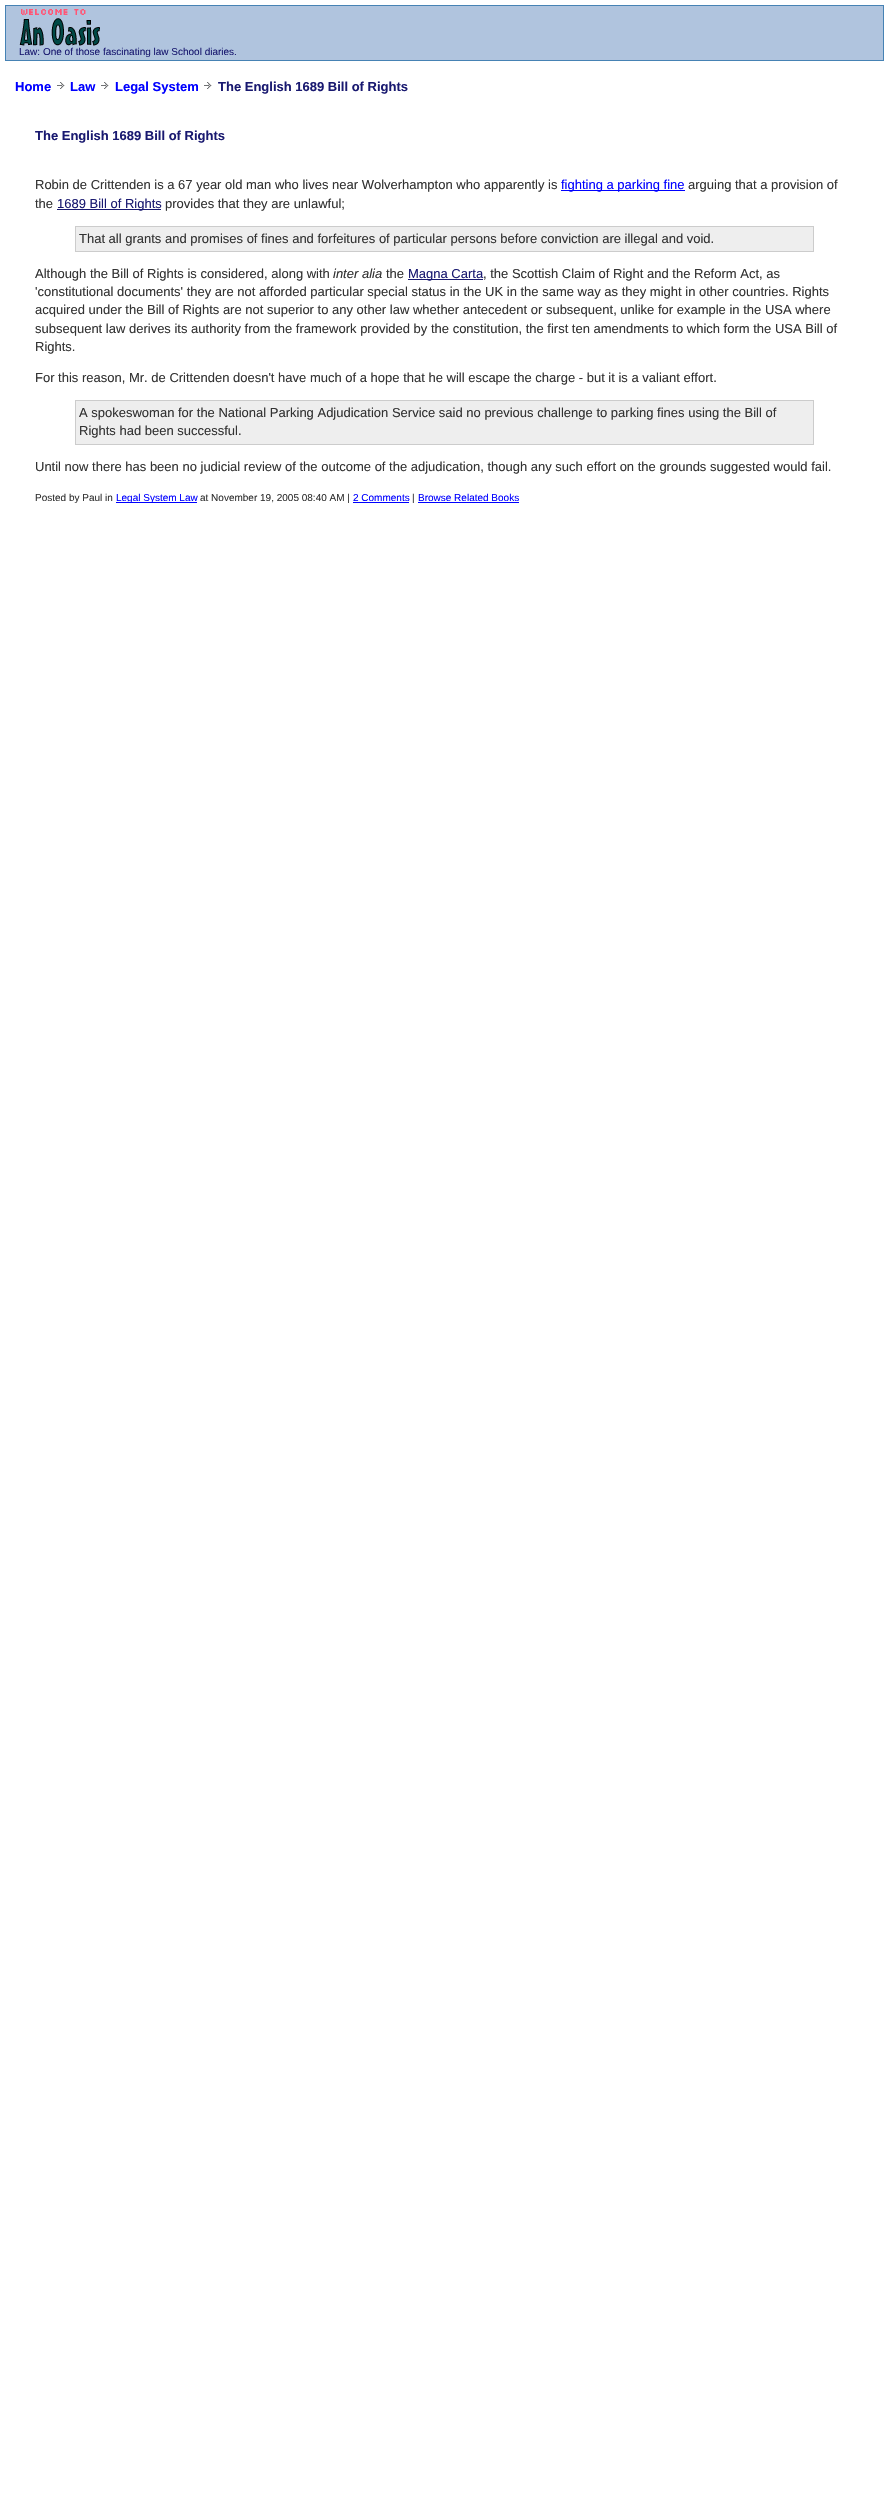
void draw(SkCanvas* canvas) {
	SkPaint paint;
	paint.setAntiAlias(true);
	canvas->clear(0xffffffff);
	paint.setColor(0xffb0c4de);
	canvas->drawRect(SkRect::MakeXYWH(5.5, 5.5, 878, 55), paint);
	paint.setStroke(true);
	paint.setStrokeWidth(1);
	paint.setColor(0xff4682b4);
	canvas->drawRect(SkRect::MakeXYWH(5.5, 5.5, 878, 55), paint);
	canvas->drawImageRect(SkImages::DeferredFromEncodedData(SkData::MakeFromFileName("img1.png")), SkRect::MakeXYWH(19, 9, 81, 37), SkSamplingOptions());
	SkFont f1(fontMgr->matchFamilyStyle("Liberation Sans", SkFontStyle::Normal()), 10);
	f1.setSubpixel(true);
	paint.setStroke(false);
	paint.setColor(0xff191970);
	canvas->drawString("Law: One of those fascinating law School diaries.", 19, 55, f1, paint);
	SkFont f2(fontMgr->matchFamilyStyle("Liberation Sans", SkFontStyle::Bold()), 13);
	f2.setSubpixel(true);
	paint.setColor(0xff0000ff);
	canvas->drawString("Home", 15, 91, f2, paint);
	canvas->drawImageRect(SkImages::DeferredFromEncodedData(SkData::MakeFromFileName("img2.png")), SkRect::MakeXYWH(57, 82, 8, 7), SkSamplingOptions());
	canvas->drawString("Law", 70, 91, f2, paint);
	canvas->drawImageRect(SkImages::DeferredFromEncodedData(SkData::MakeFromFileName("img2.png")), SkRect::MakeXYWH(101, 82, 8, 7), SkSamplingOptions());
	canvas->drawString("Legal System", 115, 91, f2, paint);
	canvas->drawImageRect(SkImages::DeferredFromEncodedData(SkData::MakeFromFileName("img2.png")), SkRect::MakeXYWH(204, 82, 8, 7), SkSamplingOptions());
	paint.setColor(0xff191970);
	canvas->drawString("The English 1689 Bill of Rights", 218, 91, f2, paint);
	canvas->drawString("The English 1689 Bill of Rights", 35, 140, f2, paint);
	SkFont f3(fontMgr->matchFamilyStyle("Liberation Sans", SkFontStyle::Normal()), 13);
	f3.setSubpixel(true);
	paint.setColor(0xff333333);
	canvas->drawString("Robin de Crittenden is a 67 year old man who lives near Wolverhampton who apparently is", 35, 189, f3, paint);
	paint.setColor(0xff0000ff);
	canvas->drawRect(SkRect::MakeXYWH(561, 190, 124, 1), paint);
	canvas->drawString("fighting a parking fine", 561, 189, f3, paint);
	paint.setColor(0xff333333);
	canvas->drawString("arguing that a provision of", 688, 189, f3, paint);
	canvas->drawString("the", 35, 208, f3, paint);
	paint.setColor(0xff191970);
	canvas->drawRect(SkRect::MakeXYWH(57, 209, 104, 1), paint);
	canvas->drawString("1689 Bill of Rights", 57, 208, f3, paint);
	paint.setColor(0xff333333);
	canvas->drawString("provides that they are unlawful;", 165, 208, f3, paint);
	paint.setColor(0xffeeeeee);
	canvas->drawRect(SkRect::MakeXYWH(75.5, 226.5, 738, 25), paint);
	paint.setStroke(true);
	paint.setColor(0xffcccccc);
	canvas->drawRect(SkRect::MakeXYWH(75.5, 226.5, 738, 25), paint);
	paint.setStroke(false);
	paint.setColor(0xff333333);
	canvas->drawString("That all grants and promises of fines and forfeitures of particular persons before conviction are illegal and void.", 79, 243, f3, paint);
	canvas->drawString("Although the Bill of Rights is considered, along with", 35, 278, f3, paint);
	SkFont f4(fontMgr->matchFamilyStyle("Liberation Sans", SkFontStyle::Italic()), 13);
	f4.setSubpixel(true);
	canvas->drawString("inter alia", 333, 278, f4, paint);
	canvas->drawString("the", 386, 278, f3, paint);
	paint.setColor(0xff191970);
	canvas->drawRect(SkRect::MakeXYWH(408, 279, 75, 1), paint);
	canvas->drawString("Magna Carta", 408, 278, f3, paint);
	paint.setColor(0xff333333);
	canvas->drawString(", the Scottish Claim of Right and the Reform Act, as", 483, 278, f3, paint);
	canvas->drawString("'constitutional documents' they are not afforded particular special status in the UK in the same way as they might in other countries. Rights", 35, 296, f3, paint);
	canvas->drawString("acquired under the Bill of Rights are not superior to any other law whether antecedent or subsequent, unlike for example in the USA where", 35, 314, f3, paint);
	canvas->drawString("subsequent law derives its authority from the framework provided by the constitution, the first ten amendments to which form the USA Bill of", 35, 333, f3, paint);
	canvas->drawString("Rights.", 35, 351, f3, paint);
	canvas->drawString("For this reason, Mr. de Crittenden doesn't have much of a hope that he will escape the charge - but it is a valiant effort.", 35, 382, f3, paint);
	paint.setColor(0xffeeeeee);
	canvas->drawRect(SkRect::MakeXYWH(75.5, 400.5, 738, 44), paint);
	paint.setStroke(true);
	paint.setColor(0xffcccccc);
	canvas->drawRect(SkRect::MakeXYWH(75.5, 400.5, 738, 44), paint);
	paint.setStroke(false);
	paint.setColor(0xff333333);
	canvas->drawString("A spokeswoman for the National Parking Adjudication Service said no previous challenge to parking fines using the Bill of", 79, 417, f3, paint);
	canvas->drawString("Rights had been successful.", 79, 435, f3, paint);
	canvas->drawString("Until now there has been no judicial review of the outcome of the adjudication, though any such effort on the grounds suggested would fail.", 35, 471, f3, paint);
	canvas->drawString("Posted by Paul in", 35, 501, f1, paint);
	paint.setColor(0xff0000ff);
	canvas->drawRect(SkRect::MakeXYWH(116, 502, 81, 1), paint);
	canvas->drawString("Legal System Law", 116, 501, f1, paint);
	paint.setColor(0xff333333);
	canvas->drawString("at November 19, 2005 08:40 AM |", 200, 501, f1, paint);
	paint.setColor(0xff0000ff);
	canvas->drawString("2 Comments", 353, 501, f1, paint);
	canvas->drawRect(SkRect::MakeXYWH(353, 502, 56, 1), paint);
	paint.setColor(0xff333333);
	canvas->drawString("|", 412, 501, f1, paint);
	paint.setColor(0xff0000ff);
	canvas->drawString("Browse Related Books", 418, 501, f1, paint);
	canvas->drawRect(SkRect::MakeXYWH(418, 502, 101, 1), paint);
}
